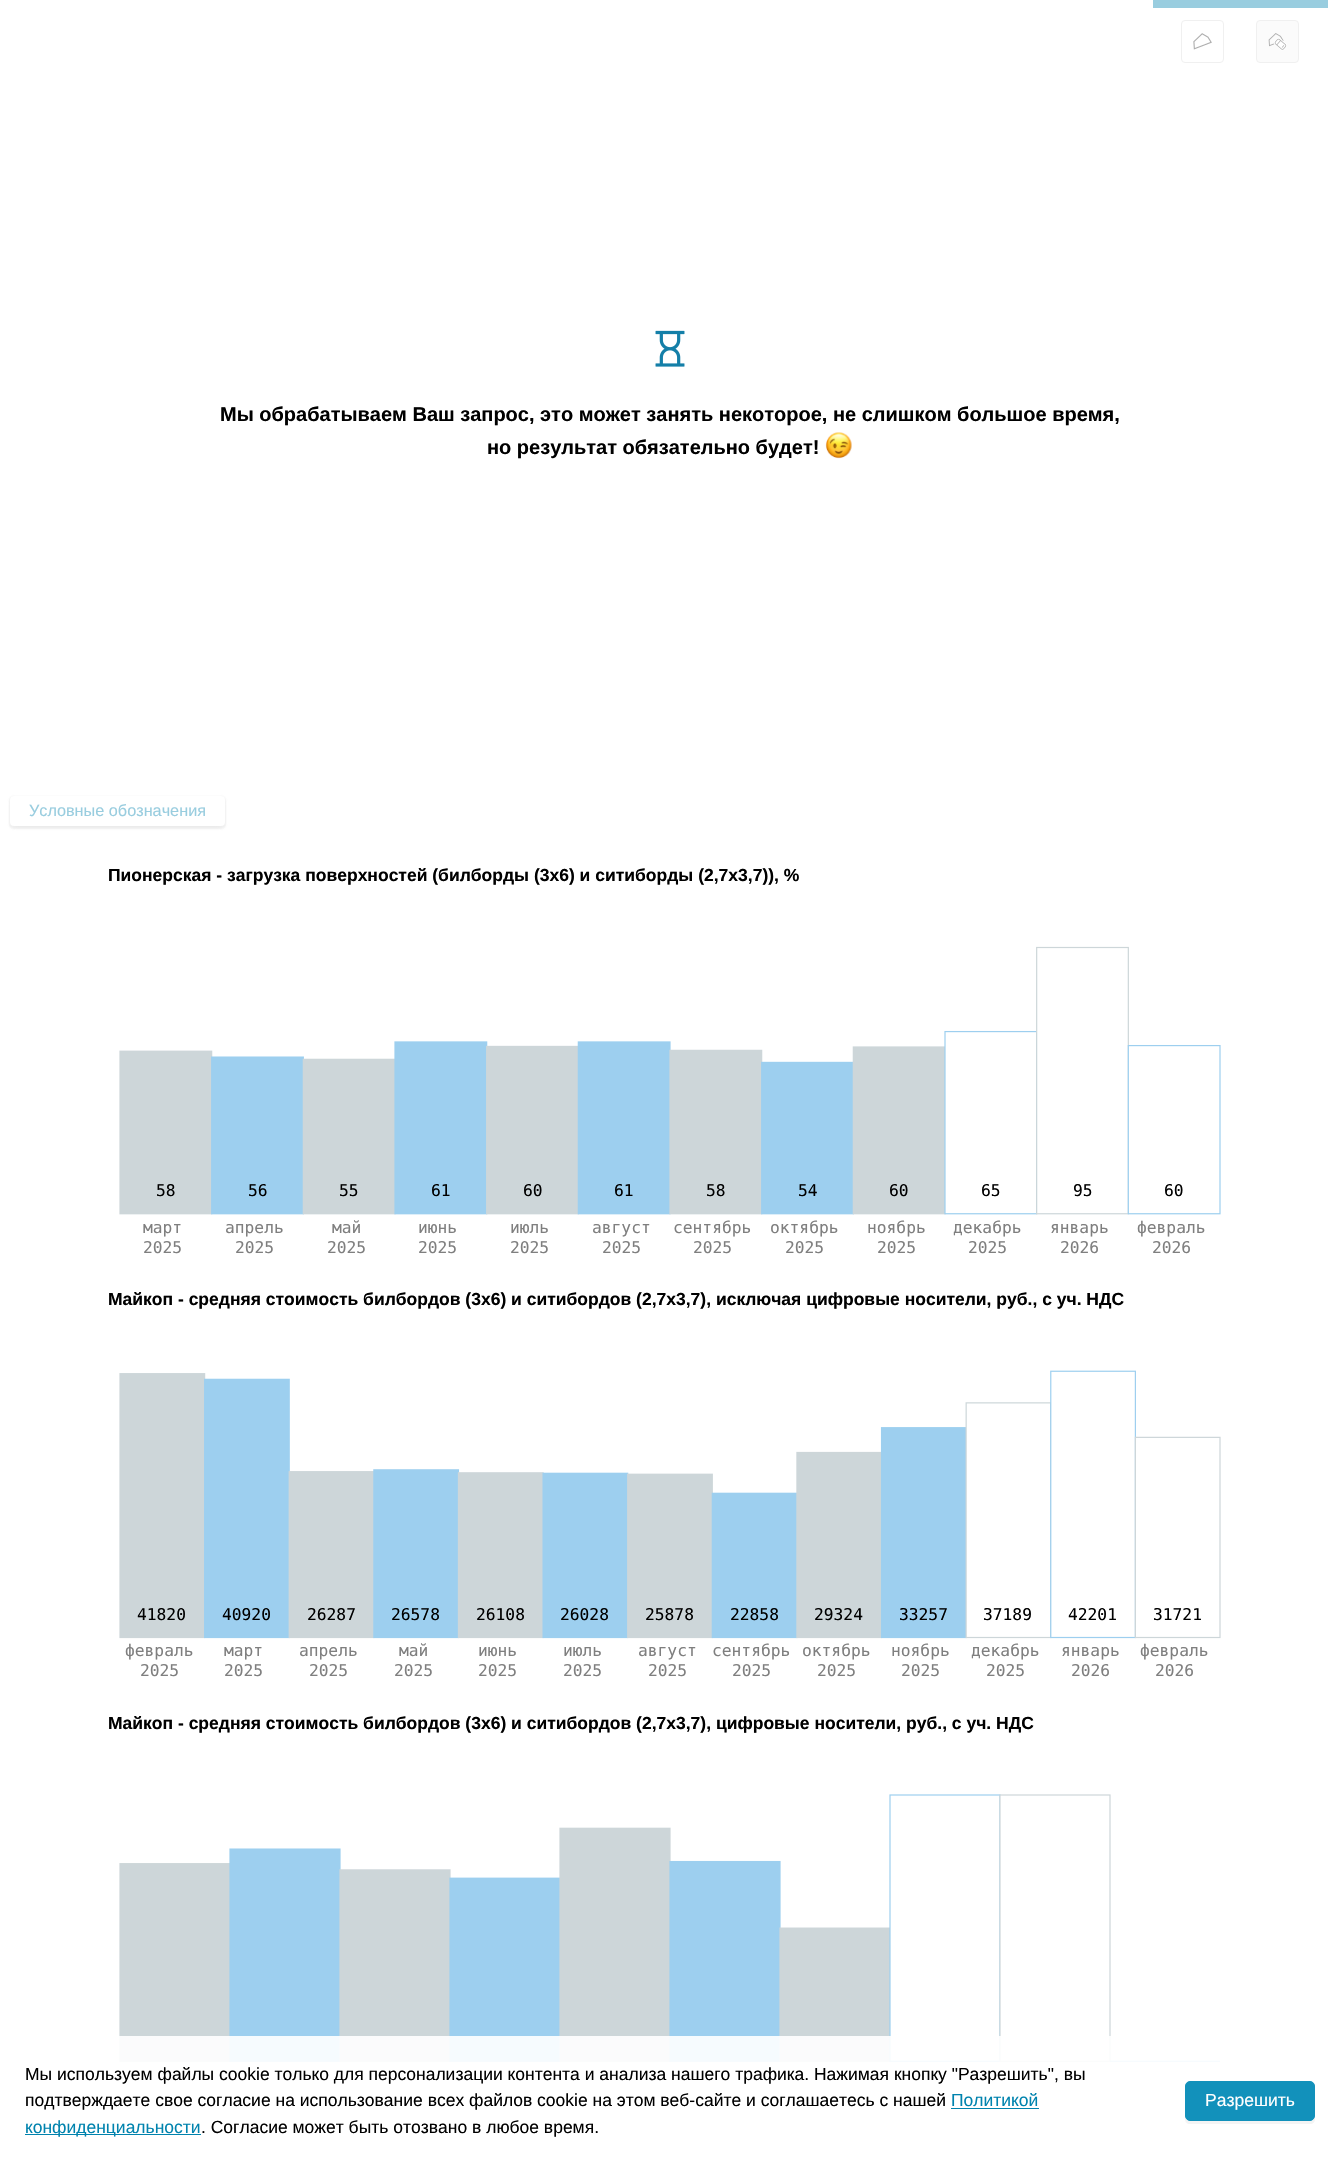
void draw(SkCanvas* canvas) {
	SkPaint paint;
	paint.setAntiAlias(true);
	auto svgPath = [&](const char* data, bool evenOdd = false) {
		SkPath result = *SkParsePath::FromSVGString(data);
		if (evenOdd) result.setFillType(SkPathFillType::kEvenOdd);
		return result;
	};
	canvas->clear(0xffffffff);
	paint.setColor(0xff99cddf);
	canvas->drawRect(SkRect::MakeXYWH(1153, 0, 175, 8), paint);
	paint.setStroke(true);
	paint.setStrokeWidth(1);
	paint.setColor(0xfff0f0f0);
	canvas->drawRoundRect(SkRect::MakeXYWH(1181.5, 20.5, 42, 42), 3.5, 3.5, paint);
	canvas->drawImageRect(SkImages::DeferredFromEncodedData(SkData::MakeFromFileName("img1.png")), SkRect::MakeXYWH(1193, 33, 19, 17), SkSamplingOptions());
	paint.setStroke(false);
	paint.setColor(0xfffbfbfb);
	canvas->drawRoundRect(SkRect::MakeXYWH(1256.5, 20.5, 42, 42), 3.5, 3.5, paint);
	paint.setStroke(true);
	paint.setColor(0xfff0f0f0);
	canvas->drawRoundRect(SkRect::MakeXYWH(1256.5, 20.5, 42, 42), 3.5, 3.5, paint);
	canvas->drawImageRect(SkImages::DeferredFromEncodedData(SkData::MakeFromFileName("img2.png")), SkRect::MakeXYWH(1268, 33, 19, 18), SkSamplingOptions());
	canvas->drawImageRect(SkImages::DeferredFromEncodedData(SkData::MakeFromFileName("img3.png")), SkRect::MakeXYWH(655, 330, 30, 37), SkSamplingOptions());
	SkFont f1(fontMgr->matchFamilyStyle("Liberation Sans", SkFontStyle::Bold()), 20);
	f1.setSubpixel(true);
	paint.setStroke(false);
	paint.setColor(0xff000000);
	canvas->drawString("Мы обрабатываем Ваш запрос, это может занять некоторое, не слишком большое время,", 220, 421, f1, paint);
	canvas->drawString("но результат обязательно будет!", 487, 454, f1, paint);
	canvas->drawImageRect(SkImages::DeferredFromEncodedData(SkData::MakeFromFileName("img4.png")), SkRect::MakeXYWH(825, 432, 27, 27), SkSamplingOptions());
	paint.setColor(0x26999999);
	paint.setMaskFilter(SkMaskFilter::MakeBlur(kNormal_SkBlurStyle, 3));
	canvas->drawRect(SkRect::MakeXYWH(14, 803, 207, 22), paint);
	paint.setMaskFilter(nullptr);
	paint.setMaskFilter(SkMaskFilter::MakeBlur(kNormal_SkBlurStyle, 1));
	canvas->drawRoundRect(SkRect::MakeXYWH(9, 796, 217, 33), 5, 5, paint);
	paint.setMaskFilter(nullptr);
	paint.setColor(0xffffffff);
	canvas->drawRoundRect(SkRect::MakeXYWH(10, 796, 215, 30), 4, 4, paint);
	SkFont f2(fontMgr->matchFamilyStyle("Liberation Sans", SkFontStyle::Normal()), 16.25);
	f2.setSubpixel(true);
	paint.setColor(0xff99cddf);
	canvas->drawString("Условные обозначения", 29, 816, f2, paint);
	SkFont f3(fontMgr->matchFamilyStyle("Liberation Sans", SkFontStyle::Bold()), 17.5);
	f3.setSubpixel(true);
	paint.setColor(0xff000000);
	canvas->drawString("Пионерская - загрузка поверхностей (билборды (3х6) и ситиборды (2,7x3,7)), %", 108, 881, f3, paint);
	canvas->drawImageRect(SkImages::DeferredFromEncodedData(SkData::MakeFromFileName("img5.png")), SkRect::MakeXYWH(119, 946, 1102, 269), SkSamplingOptions());
	SkFont f4(fontMgr->matchFamilyStyle("DejaVu Sans Mono", SkFontStyle::Normal()), 16.25);
	f4.setSubpixel(true);
	canvas->drawString("58", 156, 1196, f4, paint);
	canvas->drawString("56", 248, 1196, f4, paint);
	canvas->drawString("55", 339, 1196, f4, paint);
	canvas->drawString("61", 431, 1196, f4, paint);
	canvas->drawString("60", 523, 1196, f4, paint);
	canvas->drawString("61", 614, 1196, f4, paint);
	canvas->drawString("58", 706, 1196, f4, paint);
	canvas->drawString("54", 798, 1196, f4, paint);
	canvas->drawString("60", 889, 1196, f4, paint);
	canvas->drawString("65", 981, 1196, f4, paint);
	canvas->drawString("95", 1073, 1196, f4, paint);
	canvas->drawString("60", 1164, 1196, f4, paint);
	paint.setColor(0xff7f7f7f);
	canvas->drawString("март", 143, 1233, f4, paint);
	canvas->drawString("апрель", 225, 1233, f4, paint);
	canvas->drawString("май", 332, 1233, f4, paint);
	canvas->drawString("июнь", 418, 1233, f4, paint);
	canvas->drawString("июль", 510, 1233, f4, paint);
	canvas->drawString("август", 592, 1233, f4, paint);
	canvas->drawString("сентябрь", 673, 1233, f4, paint);
	canvas->drawString("октябрь", 770, 1233, f4, paint);
	canvas->drawString("ноябрь", 867, 1233, f4, paint);
	canvas->drawString("декабрь", 953, 1233, f4, paint);
	canvas->drawString("январь", 1050, 1233, f4, paint);
	canvas->drawString("февраль", 1137, 1233, f4, paint);
	canvas->drawString("2025", 143, 1253, f4, paint);
	canvas->drawString("2025", 235, 1253, f4, paint);
	canvas->drawString("2025", 327, 1253, f4, paint);
	canvas->drawString("2025", 418, 1253, f4, paint);
	canvas->drawString("2025", 510, 1253, f4, paint);
	canvas->drawString("2025", 602, 1253, f4, paint);
	canvas->drawString("2025", 693, 1253, f4, paint);
	canvas->drawString("2025", 785, 1253, f4, paint);
	canvas->drawString("2025", 877, 1253, f4, paint);
	canvas->drawString("2025", 968, 1253, f4, paint);
	canvas->drawString("2026", 1060, 1253, f4, paint);
	canvas->drawString("2026", 1152, 1253, f4, paint);
	paint.setColor(0xff000000);
	canvas->drawString("Майкоп - средняя стоимость билбордов (3х6) и ситибордов (2,7x3,7), исключая цифровые носители, руб., с уч. НДС", 108, 1305, f3, paint);
	canvas->drawImageRect(SkImages::DeferredFromEncodedData(SkData::MakeFromFileName("img6.png")), SkRect::MakeXYWH(119, 1370, 1102, 269), SkSamplingOptions());
	canvas->drawString("41820", 137, 1620, f4, paint);
	canvas->drawString("40920", 222, 1620, f4, paint);
	canvas->drawString("26287", 307, 1620, f4, paint);
	canvas->drawString("26578", 391, 1620, f4, paint);
	canvas->drawString("26108", 476, 1620, f4, paint);
	canvas->drawString("26028", 560, 1620, f4, paint);
	canvas->drawString("25878", 645, 1620, f4, paint);
	canvas->drawString("22858", 730, 1620, f4, paint);
	canvas->drawString("29324", 814, 1620, f4, paint);
	canvas->drawString("33257", 899, 1620, f4, paint);
	canvas->drawString("37189", 983, 1620, f4, paint);
	canvas->drawString("42201", 1068, 1620, f4, paint);
	canvas->drawString("31721", 1153, 1620, f4, paint);
	paint.setColor(0xff7f7f7f);
	canvas->drawString("февраль", 125, 1656, f4, paint);
	canvas->drawString("март", 224, 1656, f4, paint);
	canvas->drawString("апрель", 299, 1656, f4, paint);
	canvas->drawString("май", 399, 1656, f4, paint);
	canvas->drawString("июнь", 478, 1656, f4, paint);
	canvas->drawString("июль", 563, 1656, f4, paint);
	canvas->drawString("август", 638, 1656, f4, paint);
	canvas->drawString("сентябрь", 712, 1656, f4, paint);
	canvas->drawString("октябрь", 802, 1656, f4, paint);
	canvas->drawString("ноябрь", 891, 1656, f4, paint);
	canvas->drawString("декабрь", 971, 1656, f4, paint);
	canvas->drawString("январь", 1061, 1656, f4, paint);
	canvas->drawString("февраль", 1140, 1656, f4, paint);
	canvas->drawString("2025", 140, 1676, f4, paint);
	canvas->drawString("2025", 224, 1676, f4, paint);
	canvas->drawString("2025", 309, 1676, f4, paint);
	canvas->drawString("2025", 394, 1676, f4, paint);
	canvas->drawString("2025", 478, 1676, f4, paint);
	canvas->drawString("2025", 563, 1676, f4, paint);
	canvas->drawString("2025", 648, 1676, f4, paint);
	canvas->drawString("2025", 732, 1676, f4, paint);
	canvas->drawString("2025", 817, 1676, f4, paint);
	canvas->drawString("2025", 901, 1676, f4, paint);
	canvas->drawString("2025", 986, 1676, f4, paint);
	canvas->drawString("2026", 1071, 1676, f4, paint);
	canvas->drawString("2026", 1155, 1676, f4, paint);
	paint.setColor(0xff000000);
	canvas->drawString("Майкоп - средняя стоимость билбордов (3х6) и ситибордов (2,7x3,7), цифровые носители, руб., с уч. НДС", 108, 1729, f3, paint);
	canvas->drawImageRect(SkImages::DeferredFromEncodedData(SkData::MakeFromFileName("img7.png")), SkRect::MakeXYWH(119, 1794, 1101, 268), SkSamplingOptions());
	paint.setColor(0xe6ffffff);
	canvas->drawRect(SkRect::MakeXYWH(119, 2036, 1101, 26), paint);
	SkFont f5(fontMgr->matchFamilyStyle("Liberation Sans", SkFontStyle::Normal()), 17.5);
	f5.setSubpixel(true);
	paint.setColor(0xff000000);
	canvas->drawString("Мы используем файлы cookie только для персонализации контента и анализа нашего трафика. Нажимая кнопку \"Разрешить\", вы", 25, 2080, f5, paint);
	canvas->drawString("подтверждаете свое согласие на использование всех файлов cookie на этом веб-сайте и соглашаетесь с нашей", 25, 2106, f5, paint);
	paint.setColor(0xff0083ae);
	canvas->drawString("Политикой", 951, 2106, f5, paint);
	canvas->drawRect(SkRect::MakeXYWH(951, 2108, 88, 1), paint);
	canvas->drawRect(SkRect::MakeXYWH(25, 2134, 176, 1), paint);
	canvas->drawString("конфиденциальности", 25, 2133, f5, paint);
	paint.setColor(0xff000000);
	canvas->drawString(". Согласие может быть отозвано в любое время.", 201, 2133, f5, paint);
	paint.setColor(0xfff4f4f4);
	canvas->drawPath(svgPath("M1185 2116V2119C1185 2122 1187 2124 1190 2124H1310C1313 2124 1315 2122 1315 2119V2116C1315 2119 1313 2121 1310 2121H1190C1187 2121 1185 2119 1185 2116Z"), paint);
	paint.setColor(0xff1291bb);
	canvas->drawRoundRect(SkRect::MakeXYWH(1185.5, 2081.5, 129, 39), 4.5, 4.5, paint);
	paint.setStroke(true);
	canvas->drawRoundRect(SkRect::MakeXYWH(1185.5, 2081.5, 129, 39), 4.5, 4.5, paint);
	paint.setStroke(false);
	paint.setColor(0xffffffff);
	canvas->drawString("Разрешить", 1205, 2106, f5, paint);
}
